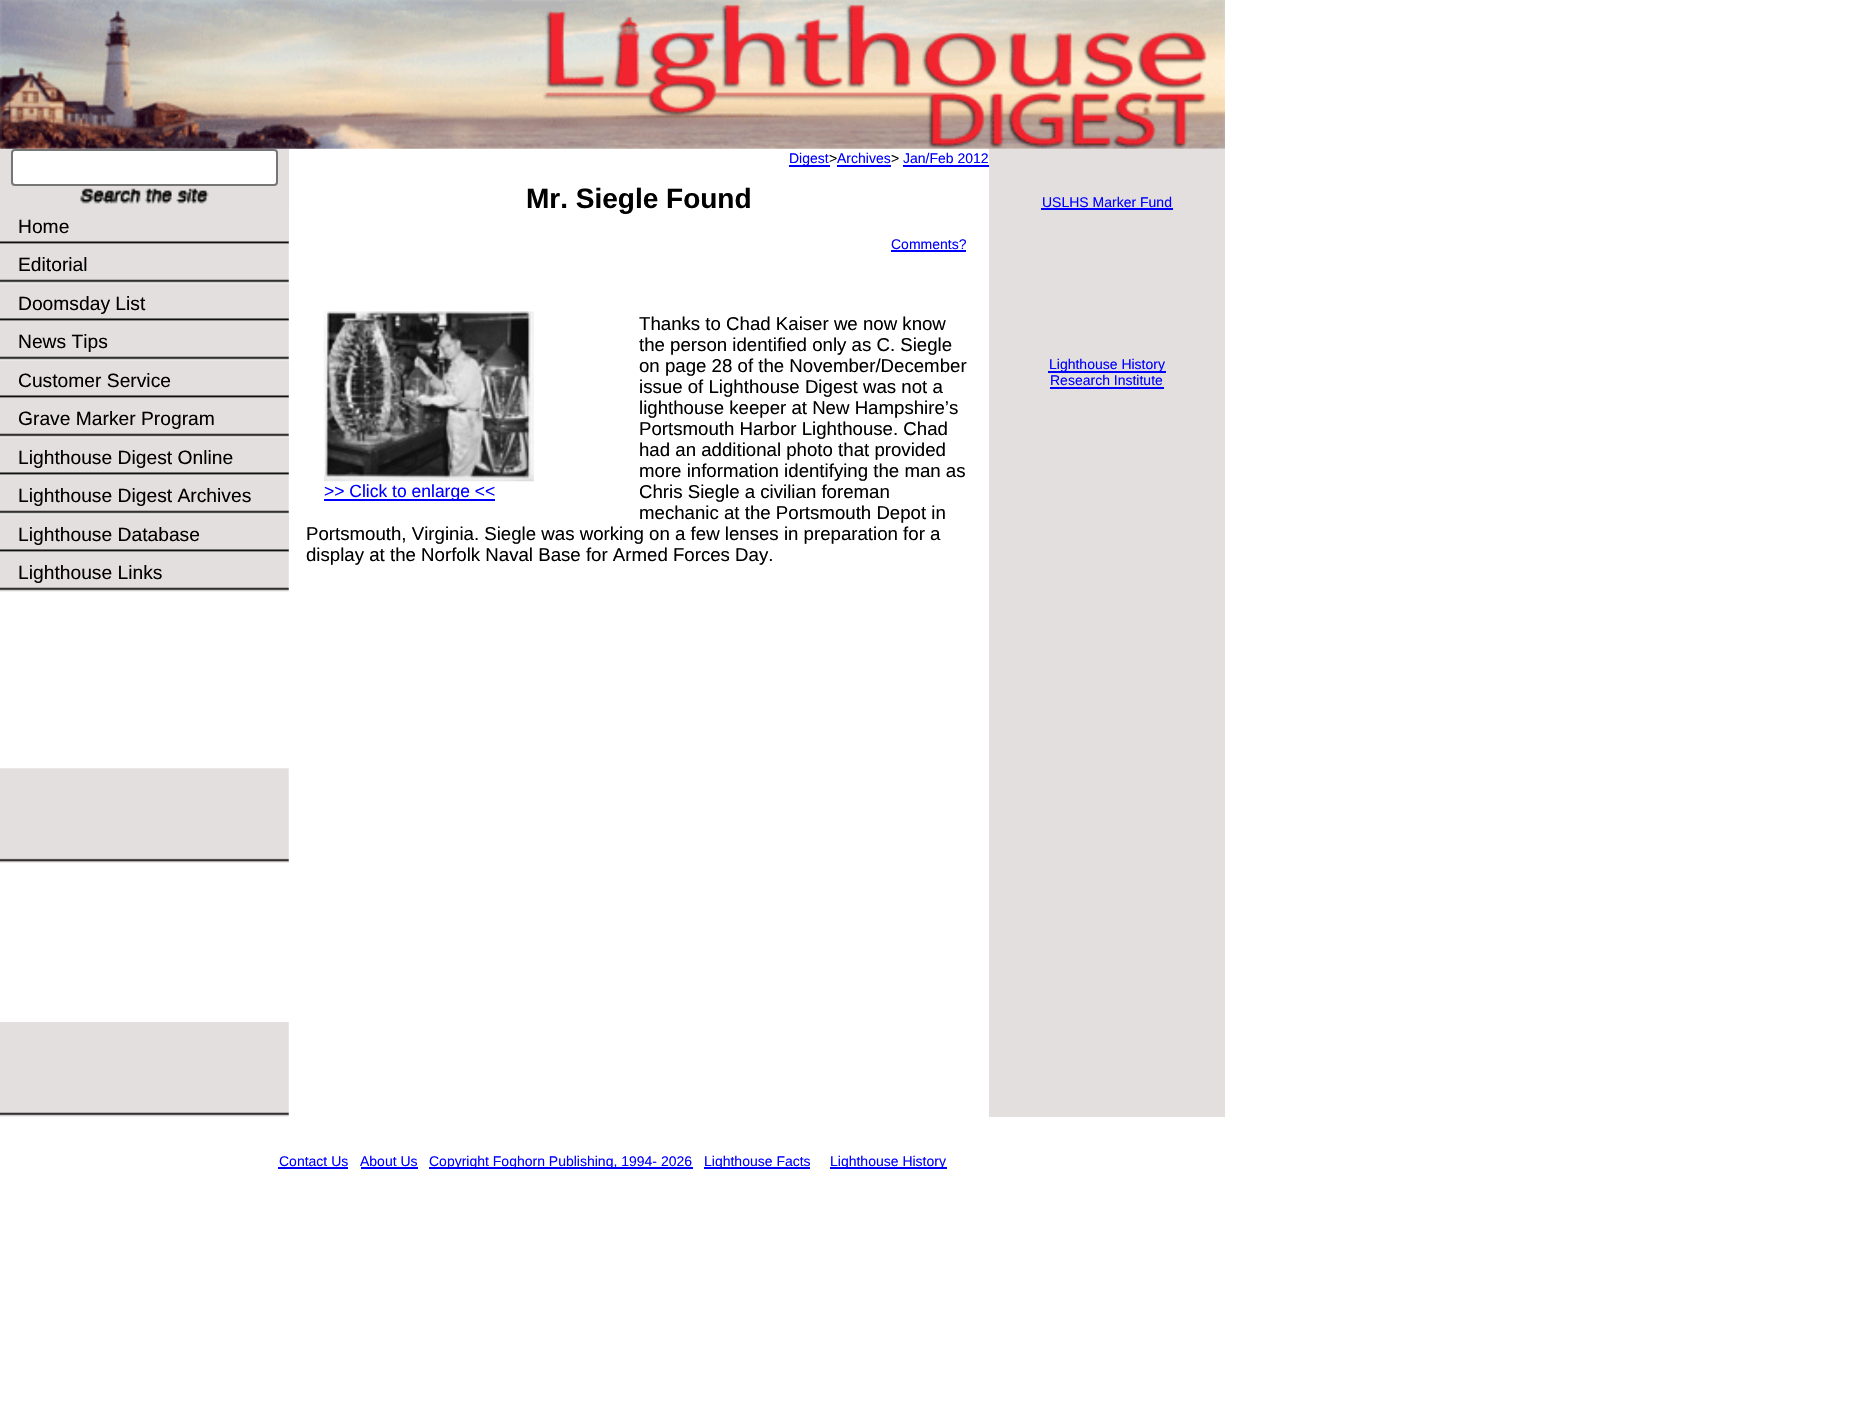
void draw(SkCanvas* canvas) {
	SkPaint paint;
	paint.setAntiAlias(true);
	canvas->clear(0xffffffff);
	canvas->drawImageRect(SkImages::DeferredFromEncodedData(SkData::MakeFromFileName("img1.png")), SkRect::MakeXYWH(0, 0, 1225, 149), SkSamplingOptions());
	paint.setColor(0xffe4dfdf);
	canvas->drawRect(SkRect::MakeXYWH(0, 149, 289, 404), paint);
	paint.setColor(0xffffffff);
	canvas->drawRoundRect(SkRect::MakeXYWH(12, 150, 265, 35), 3, 3, paint);
	paint.setStroke(true);
	paint.setStrokeWidth(2);
	paint.setColor(0xff767676);
	canvas->drawRoundRect(SkRect::MakeXYWH(12, 150, 265, 35), 3, 3, paint);
	canvas->drawImageRect(SkImages::DeferredFromEncodedData(SkData::MakeFromFileName("img2.png")), SkRect::MakeXYWH(80, 188, 129, 16), SkSamplingOptions());
	canvas->drawImageRect(SkImages::DeferredFromEncodedData(SkData::MakeFromFileName("img3.png")), SkRect::MakeXYWH(0, 207, 289, 38), SkSamplingOptions());
	SkFont f1(fontMgr->matchFamilyStyle("Liberation Sans", SkFontStyle::Normal()), 19.25);
	f1.setSubpixel(true);
	paint.setStroke(false);
	paint.setColor(0xff000000);
	canvas->drawString("Home", 18, 233, f1, paint);
	paint.setColor(0xffffffff);
	canvas->drawRect(SkRect::MakeXYWH(0, 245, 289, 39), paint);
	canvas->drawImageRect(SkImages::DeferredFromEncodedData(SkData::MakeFromFileName("img4.png")), SkRect::MakeXYWH(0, 245, 289, 39), SkSamplingOptions());
	paint.setColor(0xff000000);
	canvas->drawString("Editorial", 18, 271, f1, paint);
	canvas->drawImageRect(SkImages::DeferredFromEncodedData(SkData::MakeFromFileName("img5.png")), SkRect::MakeXYWH(0, 283, 289, 39), SkSamplingOptions());
	canvas->drawString("Doomsday List", 18, 310, f1, paint);
	paint.setColor(0xffffffff);
	canvas->drawRect(SkRect::MakeXYWH(0, 322, 289, 39), paint);
	canvas->drawImageRect(SkImages::DeferredFromEncodedData(SkData::MakeFromFileName("img4.png")), SkRect::MakeXYWH(0, 322, 289, 39), SkSamplingOptions());
	paint.setColor(0xff000000);
	canvas->drawString("News Tips", 18, 348, f1, paint);
	canvas->drawImageRect(SkImages::DeferredFromEncodedData(SkData::MakeFromFileName("img5.png")), SkRect::MakeXYWH(0, 360, 289, 39), SkSamplingOptions());
	canvas->drawString("Customer Service", 18, 387, f1, paint);
	paint.setColor(0xffffffff);
	canvas->drawRect(SkRect::MakeXYWH(0, 399, 289, 39), paint);
	canvas->drawImageRect(SkImages::DeferredFromEncodedData(SkData::MakeFromFileName("img4.png")), SkRect::MakeXYWH(0, 399, 289, 39), SkSamplingOptions());
	paint.setColor(0xff000000);
	canvas->drawString("Grave Marker Program", 18, 425, f1, paint);
	canvas->drawImageRect(SkImages::DeferredFromEncodedData(SkData::MakeFromFileName("img6.png")), SkRect::MakeXYWH(0, 437, 289, 39), SkSamplingOptions());
	canvas->drawString("Lighthouse Digest Online", 18, 464, f1, paint);
	paint.setColor(0xffffffff);
	canvas->drawRect(SkRect::MakeXYWH(0, 476, 289, 39), paint);
	canvas->drawImageRect(SkImages::DeferredFromEncodedData(SkData::MakeFromFileName("img4.png")), SkRect::MakeXYWH(0, 476, 289, 39), SkSamplingOptions());
	paint.setColor(0xff000000);
	canvas->drawString("Lighthouse Digest Archives", 18, 502, f1, paint);
	canvas->drawImageRect(SkImages::DeferredFromEncodedData(SkData::MakeFromFileName("img6.png")), SkRect::MakeXYWH(0, 514, 289, 39), SkSamplingOptions());
	canvas->drawString("Lighthouse Database", 18, 541, f1, paint);
	canvas->drawImageRect(SkImages::DeferredFromEncodedData(SkData::MakeFromFileName("img4.png")), SkRect::MakeXYWH(0, 553, 289, 39), SkSamplingOptions());
	canvas->drawString("Lighthouse Links", 18, 579, f1, paint);
	canvas->drawImageRect(SkImages::DeferredFromEncodedData(SkData::MakeFromFileName("img7.png")), SkRect::MakeXYWH(0, 768, 289, 95), SkSamplingOptions());
	canvas->drawImageRect(SkImages::DeferredFromEncodedData(SkData::MakeFromFileName("img8.png")), SkRect::MakeXYWH(0, 1022, 289, 95), SkSamplingOptions());
	paint.setColor(0xff0000ff);
	canvas->drawRect(SkRect::MakeXYWH(789, 165, 41, 2), paint);
	SkFont f2(fontMgr->matchFamilyStyle("Liberation Sans", SkFontStyle::Normal()), 14);
	f2.setSubpixel(true);
	canvas->drawString("Digest", 789, 163, f2, paint);
	paint.setColor(0xff000000);
	canvas->drawString(">", 829, 163, f2, paint);
	paint.setColor(0xff0000ff);
	canvas->drawString("Archives", 837, 163, f2, paint);
	canvas->drawRect(SkRect::MakeXYWH(837, 165, 54, 2), paint);
	paint.setColor(0xff000000);
	canvas->drawString(">", 891, 163, f2, paint);
	paint.setColor(0xff0000ff);
	canvas->drawString("Jan/Feb 2012", 903, 163, f2, paint);
	canvas->drawRect(SkRect::MakeXYWH(903, 165, 86, 2), paint);
	SkFont f3(fontMgr->matchFamilyStyle("Liberation Sans", SkFontStyle::Bold()), 28);
	f3.setSubpixel(true);
	paint.setColor(0xff000000);
	canvas->drawString("Mr. Siegle Found", 526, 208, f3, paint);
	paint.setColor(0xff0000ff);
	canvas->drawString("Comments?", 891, 249, f2, paint);
	canvas->drawRect(SkRect::MakeXYWH(891, 250, 75, 2), paint);
	SkFont f4(fontMgr->matchFamilyStyle("Liberation Sans", SkFontStyle::Normal()), 18.65);
	f4.setSubpixel(true);
	paint.setColor(0xff000000);
	canvas->drawString("Thanks to Chad Kaiser we now know", 639, 330, f4, paint);
	canvas->drawString("the person identified only as C. Siegle", 639, 351, f4, paint);
	canvas->drawString("on page 28 of the November/December", 639, 372, f4, paint);
	canvas->drawString("issue of Lighthouse Digest was not a", 639, 393, f4, paint);
	canvas->drawString("lighthouse keeper at New Hampshire’s", 639, 414, f4, paint);
	canvas->drawString("Portsmouth Harbor Lighthouse. Chad", 639, 435, f4, paint);
	canvas->drawString("had an additional photo that provided", 639, 456, f4, paint);
	canvas->drawString("more information identifying the man as", 639, 477, f4, paint);
	canvas->drawString("Chris Siegle a civilian foreman", 639, 498, f4, paint);
	canvas->drawString("mechanic at the Portsmouth Depot in", 639, 519, f4, paint);
	canvas->drawString("Portsmouth, Virginia. Siegle was working on a few lenses in preparation for a", 306, 540, f4, paint);
	canvas->drawString("display at the Norfolk Naval Base for Armed Forces Day.", 306, 561, f4, paint);
	canvas->drawImageRect(SkImages::DeferredFromEncodedData(SkData::MakeFromFileName("img9.png")), SkRect::MakeXYWH(323, 311, 211, 171), SkSamplingOptions());
	paint.setColor(0xff0000ff);
	canvas->drawRect(SkRect::MakeXYWH(324, 499, 171, 2), paint);
	SkFont f5(fontMgr->matchFamilyStyle("Liberation Sans", SkFontStyle::Normal()), 17.5);
	f5.setSubpixel(true);
	canvas->drawString(">> Click to enlarge <<", 324, 497, f5, paint);
	paint.setColor(0xffe4dfdf);
	canvas->drawRect(SkRect::MakeXYWH(989, 149, 236, 968), paint);
	paint.setColor(0xff0000ff);
	canvas->drawString("USLHS Marker Fund", 1042, 207, f2, paint);
	canvas->drawRect(SkRect::MakeXYWH(1041, 208, 132, 2), paint);
	canvas->drawRect(SkRect::MakeXYWH(1048, 371, 118, 2), paint);
	canvas->drawString("Lighthouse History", 1049, 369, f2, paint);
	canvas->drawString("Research Institute", 1050, 385, f2, paint);
	canvas->drawRect(SkRect::MakeXYWH(1050, 387, 114, 2), paint);
	canvas->drawString("Contact Us", 279, 1166, f2, paint);
	canvas->drawRect(SkRect::MakeXYWH(278, 1167, 70, 2), paint);
	canvas->drawString("About Us", 360, 1166, f2, paint);
	canvas->drawRect(SkRect::MakeXYWH(361, 1167, 57, 2), paint);
	canvas->drawRect(SkRect::MakeXYWH(429, 1167, 264, 2), paint);
	canvas->drawString("Copyright Foghorn Publishing, 1994- 2026", 429, 1166, f2, paint);
	canvas->drawRect(SkRect::MakeXYWH(704, 1167, 106, 2), paint);
	canvas->drawString("Lighthouse Facts", 704, 1166, f2, paint);
	canvas->drawRect(SkRect::MakeXYWH(830, 1167, 117, 2), paint);
	canvas->drawString("Lighthouse History", 830, 1166, f2, paint);
}
